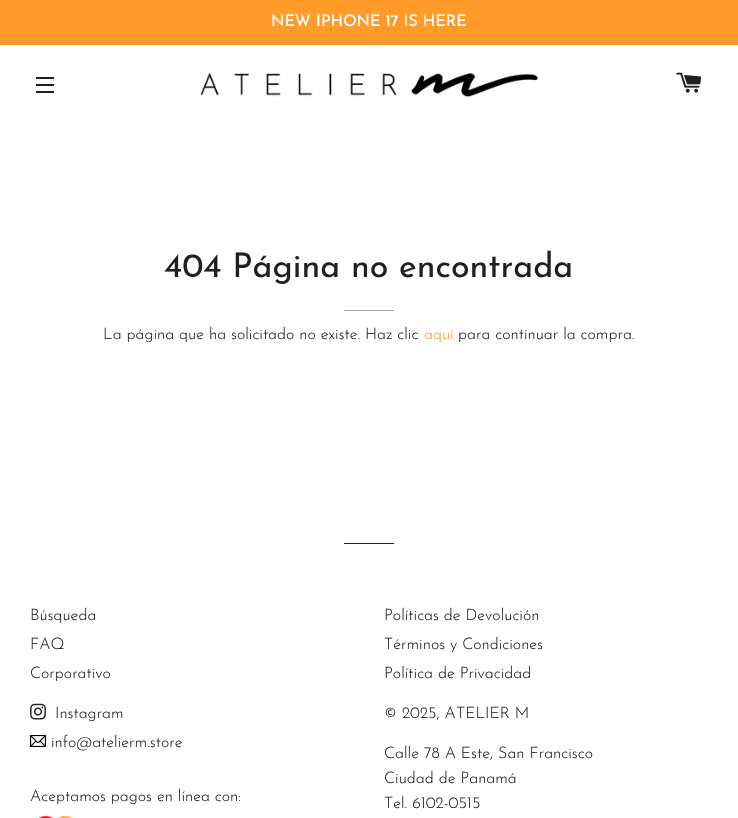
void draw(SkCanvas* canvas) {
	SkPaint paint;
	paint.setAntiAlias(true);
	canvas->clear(0xffffffff);
	paint.setColor(0xffff9b28);
	canvas->drawRect(SkRect::MakeXYWH(0, 0, 738, 45), paint);
	SkFont f1(fontMgr->matchFamilyStyle("Josefin Sans", SkFontStyle::Normal()), 16);
	f1.setSubpixel(true);
	paint.setColor(0xffffffff);
	canvas->drawString("NEW IPHONE 17 IS HERE", 271, 26, f1, paint);
	paint.setColor(0xff1f2021);
	canvas->drawRect(SkRect::MakeXYWH(36, 77, 18, 2), paint);
	canvas->drawRect(SkRect::MakeXYWH(36, 84, 18, 2), paint);
	canvas->drawRect(SkRect::MakeXYWH(36, 91, 18, 2), paint);
	canvas->drawImageRect(SkImages::DeferredFromEncodedData(SkData::MakeFromFileName("img1.png")), SkRect::MakeXYWH(200, 73, 338, 24), SkSamplingOptions());
	canvas->drawImageRect(SkImages::DeferredFromEncodedData(SkData::MakeFromFileName("img2.png")), SkRect::MakeXYWH(676, 72, 26, 21), SkSamplingOptions());
	SkFont f2(fontMgr->matchFamilyStyle("Josefin Sans", SkFontStyle::Normal()), 34);
	f2.setSubpixel(true);
	canvas->drawString("404 Página no encontrada", 164, 277, f2, paint);
	paint.setColor(0xffa6a6a6);
	canvas->drawRect(SkRect::MakeXYWH(344, 310, 50, 1), paint);
	SkFont f3(fontMgr->matchFamilyStyle("Josefin Sans", SkFontStyle(300, SkFontStyle::kNormal_Width, SkFontStyle::kUpright_Slant)), 16);
	f3.setSubpixel(true);
	paint.setColor(0xff1f2021);
	canvas->drawString("La página que ha solicitado no existe. Haz clic", 103, 339, f3, paint);
	paint.setColor(0xffff9b28);
	canvas->drawString("aquí", 424, 339, f3, paint);
	paint.setColor(0xff1f2021);
	canvas->drawString("para continuar la compra.", 458, 339, f3, paint);
	canvas->drawRect(SkRect::MakeXYWH(344, 543, 50, 1), paint);
	canvas->drawString("Búsqueda", 30, 620, f3, paint);
	canvas->drawString("FAQ", 30, 649, f3, paint);
	canvas->drawString("Corporativo", 30, 678, f3, paint);
	canvas->drawString("Políticas de Devolución", 384, 620, f3, paint);
	canvas->drawString("Términos y Condiciones", 384, 649, f3, paint);
	canvas->drawString("Política de Privacidad", 384, 678, f3, paint);
	canvas->drawImageRect(SkImages::DeferredFromEncodedData(SkData::MakeFromFileName("img3.png")), SkRect::MakeXYWH(30, 703, 16, 17), SkSamplingOptions());
	canvas->drawString("Instagram", 55, 718, f3, paint);
	canvas->drawImageRect(SkImages::DeferredFromEncodedData(SkData::MakeFromFileName("img4.png")), SkRect::MakeXYWH(30, 735, 16, 12), SkSamplingOptions());
	canvas->drawString("info@atelierm.store", 51, 747, f3, paint);
	canvas->drawString("Aceptamos pagos en línea con:", 30, 801, f3, paint);
	canvas->drawImageRect(SkImages::DeferredFromEncodedData(SkData::MakeFromFileName("img5.png")), SkRect::MakeXYWH(38, 815, 35, 3), SkSamplingOptions());
	canvas->drawString("© 2025, ATELIER M", 384, 718, f3, paint);
	canvas->drawString("Calle 78 A Este, San Francisco", 384, 758, f3, paint);
	canvas->drawString("Ciudad de Panamá", 384, 783, f3, paint);
	canvas->drawString("Tel. 6102-0515", 384, 808, f3, paint);
}
